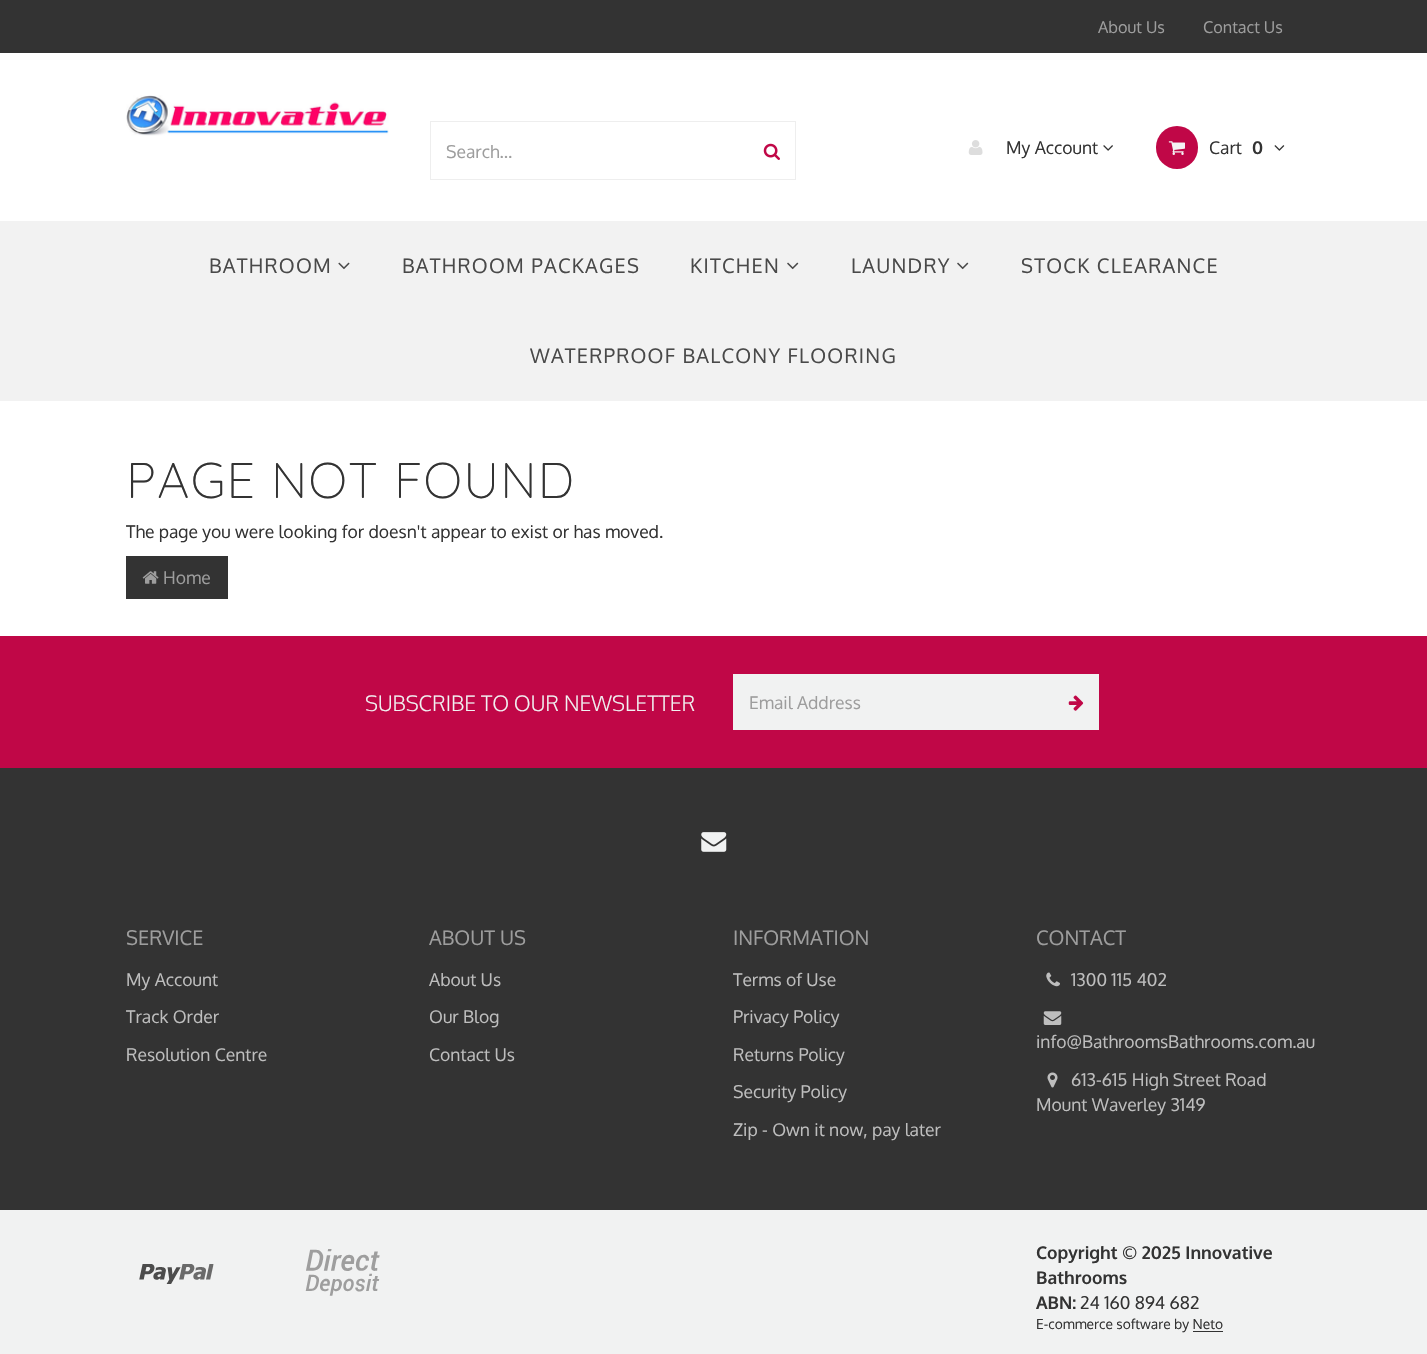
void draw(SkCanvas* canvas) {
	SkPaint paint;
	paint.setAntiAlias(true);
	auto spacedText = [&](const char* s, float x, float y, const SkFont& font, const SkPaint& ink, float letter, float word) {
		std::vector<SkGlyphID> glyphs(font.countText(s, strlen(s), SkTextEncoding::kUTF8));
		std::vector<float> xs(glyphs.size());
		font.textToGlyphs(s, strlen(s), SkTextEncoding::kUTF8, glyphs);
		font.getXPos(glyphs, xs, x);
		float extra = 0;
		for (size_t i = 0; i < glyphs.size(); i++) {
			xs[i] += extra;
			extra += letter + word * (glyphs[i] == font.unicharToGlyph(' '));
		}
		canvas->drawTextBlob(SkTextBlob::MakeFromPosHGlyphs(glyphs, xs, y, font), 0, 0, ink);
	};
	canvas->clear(0xffffffff);
	paint.setColor(0xff333333);
	canvas->drawRect(SkRect::MakeXYWH(0, 0, 1427, 53), paint);
	SkFont f1(fontMgr->matchFamilyStyle("Oxygen", SkFontStyle::Normal()), 16.25);
	f1.setSubpixel(true);
	paint.setColor(0xff9d9d9d);
	canvas->drawString("About Us", 1098, 33, f1, paint);
	canvas->drawString("Contact Us", 1203, 33, f1, paint);
	canvas->drawImageRect(SkImages::DeferredFromEncodedData(SkData::MakeFromFileName("img1.png")), SkRect::MakeXYWH(126, 95, 263, 41), SkSamplingOptions());
	paint.setStroke(true);
	paint.setStrokeWidth(1);
	paint.setColor(0xffeeeeee);
	canvas->drawRect(SkRect::MakeXYWH(430.5, 121.5, 365, 58), paint);
	SkFont f2(fontMgr->matchFamilyStyle("Oxygen", SkFontStyle::Normal()), 17.5);
	f2.setSubpixel(true);
	paint.setStroke(false);
	paint.setColor(0xff9d9d9d);
	canvas->drawString("Search...", 446, 158, f2, paint);
	canvas->drawImageRect(SkImages::DeferredFromEncodedData(SkData::MakeFromFileName("img2.png")), SkRect::MakeXYWH(763, 143, 17, 17), SkSamplingOptions());
	canvas->drawImageRect(SkImages::DeferredFromEncodedData(SkData::MakeFromFileName("img3.png")), SkRect::MakeXYWH(968, 140, 15, 15), SkSamplingOptions());
	paint.setColor(0xff333333);
	canvas->drawString("My Account", 1006, 154, f2, paint);
	canvas->drawImageRect(SkImages::DeferredFromEncodedData(SkData::MakeFromFileName("img4.png")), SkRect::MakeXYWH(1103, 145, 10, 6), SkSamplingOptions());
	paint.setColor(0xffc00747);
	canvas->drawRoundRect(SkRect::MakeXYWH(1156, 126, 42, 43), 21, 21, paint);
	canvas->drawImageRect(SkImages::DeferredFromEncodedData(SkData::MakeFromFileName("img5.png")), SkRect::MakeXYWH(1168, 141, 17, 14), SkSamplingOptions());
	paint.setColor(0xff333333);
	canvas->drawString("Cart", 1209, 154, f2, paint);
	SkFont f3(fontMgr->matchFamilyStyle("Oxygen", SkFontStyle::Bold()), 17.5);
	f3.setSubpixel(true);
	canvas->drawString("0", 1252, 154, f3, paint);
	canvas->drawImageRect(SkImages::DeferredFromEncodedData(SkData::MakeFromFileName("img6.png")), SkRect::MakeXYWH(1274, 145, 11, 6), SkSamplingOptions());
	paint.setColor(0xfff2f2f2);
	canvas->drawRect(SkRect::MakeXYWH(0, 221, 1427, 180), paint);
	SkFont f4(fontMgr->matchFamilyStyle("Oxygen", SkFontStyle::Normal()), 20);
	f4.setSubpixel(true);
	paint.setColor(0xff494949);
	spacedText("BATHROOM", 209, 273, f4, paint, 1.25, 0);
	canvas->drawImageRect(SkImages::DeferredFromEncodedData(SkData::MakeFromFileName("img7.png")), SkRect::MakeXYWH(338, 262, 12, 8), SkSamplingOptions());
	spacedText("BATHROOM PACKAGES", 402, 273, f4, paint, 1.25, 0);
	spacedText("KITCHEN", 690, 273, f4, paint, 1.25, 0);
	canvas->drawImageRect(SkImages::DeferredFromEncodedData(SkData::MakeFromFileName("img8.png")), SkRect::MakeXYWH(787, 262, 12, 8), SkSamplingOptions());
	spacedText("LAUNDRY", 851, 273, f4, paint, 1.25, 0);
	canvas->drawImageRect(SkImages::DeferredFromEncodedData(SkData::MakeFromFileName("img8.png")), SkRect::MakeXYWH(957, 262, 12, 8), SkSamplingOptions());
	spacedText("STOCK CLEARANCE", 1021, 273, f4, paint, 1.25, 0);
	spacedText("WATERPROOF BALCONY FLOORING", 530, 363, f4, paint, 1.25, 0);
	SkFont f5(fontMgr->matchFamilyStyle("Quicksand", SkFontStyle(300, SkFontStyle::kNormal_Width, SkFontStyle::kUpright_Slant)), 50);
	f5.setSubpixel(true);
	paint.setColor(0xff333333);
	spacedText("PAGE NOT FOUND", 126, 498, f5, paint, 1.25, 0);
	canvas->drawString("The page you were looking for doesn't appear to exist or has moved.", 126, 538, f2, paint);
	canvas->drawRect(SkRect::MakeXYWH(126, 556, 102, 43), paint);
	canvas->drawImageRect(SkImages::DeferredFromEncodedData(SkData::MakeFromFileName("img9.png")), SkRect::MakeXYWH(142, 571, 17, 13), SkSamplingOptions());
	paint.setColor(0xff9d9d9d);
	canvas->drawString("Home", 163, 584, f2, paint);
	paint.setColor(0xffc00747);
	canvas->drawRect(SkRect::MakeXYWH(0, 636, 1427, 132), paint);
	SkFont f6(fontMgr->matchFamilyStyle("Oxygen", SkFontStyle(300, SkFontStyle::kNormal_Width, SkFontStyle::kUpright_Slant)), 21.25);
	f6.setSubpixel(true);
	paint.setColor(0xfff1f2f2);
	canvas->drawString("SUBSCRIBE TO OUR NEWSLETTER", 365, 711, f6, paint);
	canvas->drawRect(SkRect::MakeXYWH(733, 674, 366, 56), paint);
	paint.setColor(0xff9d9d9d);
	canvas->drawString("Email Address", 749, 709, f2, paint);
	canvas->drawImageRect(SkImages::DeferredFromEncodedData(SkData::MakeFromFileName("img10.png")), SkRect::MakeXYWH(1068, 695, 16, 16), SkSamplingOptions());
	paint.setColor(0xff333333);
	canvas->drawRect(SkRect::MakeXYWH(0, 768, 1427, 442), paint);
	canvas->drawImageRect(SkImages::DeferredFromEncodedData(SkData::MakeFromFileName("img11.png")), SkRect::MakeXYWH(701, 832, 26, 20), SkSamplingOptions());
	paint.setColor(0xff9d9d9d);
	canvas->drawString("SERVICE", 126, 945, f4, paint);
	paint.setColor(0xffbebebe);
	canvas->drawString("My Account", 126, 986, f2, paint);
	canvas->drawString("Track Order", 126, 1023, f2, paint);
	canvas->drawString("Resolution Centre", 126, 1061, f2, paint);
	paint.setColor(0xff9d9d9d);
	canvas->drawString("ABOUT US", 429, 945, f4, paint);
	paint.setColor(0xffbebebe);
	canvas->drawString("About Us", 429, 986, f2, paint);
	canvas->drawString("Our Blog", 429, 1023, f2, paint);
	canvas->drawString("Contact Us", 429, 1061, f2, paint);
	paint.setColor(0xff9d9d9d);
	canvas->drawString("INFORMATION", 733, 945, f4, paint);
	paint.setColor(0xffbebebe);
	canvas->drawString("Terms of Use", 733, 986, f2, paint);
	canvas->drawString("Privacy Policy", 733, 1023, f2, paint);
	canvas->drawString("Returns Policy", 733, 1061, f2, paint);
	canvas->drawString("Security Policy", 733, 1098, f2, paint);
	canvas->drawString("Zip - Own it now, pay later", 733, 1136, f2, paint);
	paint.setColor(0xff9d9d9d);
	canvas->drawString("CONTACT", 1036, 945, f4, paint);
	canvas->drawImageRect(SkImages::DeferredFromEncodedData(SkData::MakeFromFileName("img12.png")), SkRect::MakeXYWH(1046, 972, 14, 15), SkSamplingOptions());
	paint.setColor(0xffbebebe);
	canvas->drawString("1300 115 402", 1071, 986, f2, paint);
	canvas->drawImageRect(SkImages::DeferredFromEncodedData(SkData::MakeFromFileName("img13.png")), SkRect::MakeXYWH(1043, 1011, 19, 14), SkSamplingOptions());
	canvas->drawString("info@BathroomsBathrooms.com.au", 1036, 1048, f2, paint);
	canvas->drawImageRect(SkImages::DeferredFromEncodedData(SkData::MakeFromFileName("img14.png")), SkRect::MakeXYWH(1047, 1072, 11, 16), SkSamplingOptions());
	canvas->drawString("613-615 High Street Road", 1071, 1086, f2, paint);
	canvas->drawString("Mount Waverley 3149", 1036, 1111, f2, paint);
	paint.setColor(0xfff1f2f2);
	canvas->drawRect(SkRect::MakeXYWH(0, 1210, 1427, 144), paint);
	canvas->drawImageRect(SkImages::DeferredFromEncodedData(SkData::MakeFromFileName("img15.png")), SkRect::MakeXYWH(139, 1264, 75, 20), SkSamplingOptions());
	canvas->drawImageRect(SkImages::DeferredFromEncodedData(SkData::MakeFromFileName("img16.png")), SkRect::MakeXYWH(305, 1249, 75, 47), SkSamplingOptions());
	paint.setColor(0xff333333);
	canvas->drawString("Copyright © 2025 Innovative", 1036, 1259, f3, paint);
	canvas->drawString("Bathrooms", 1036, 1284, f3, paint);
	canvas->drawString("ABN:", 1036, 1309, f3, paint);
	canvas->drawString("24 160 894 682", 1080, 1309, f2, paint);
	SkFont f7(fontMgr->matchFamilyStyle("Oxygen", SkFontStyle::Normal()), 13.75);
	f7.setSubpixel(true);
	canvas->drawString("E-commerce software by Neto", 1036, 1329, f7, paint);
	canvas->drawRect(SkRect::MakeXYWH(1193, 1331, 30, 1), paint);
}
